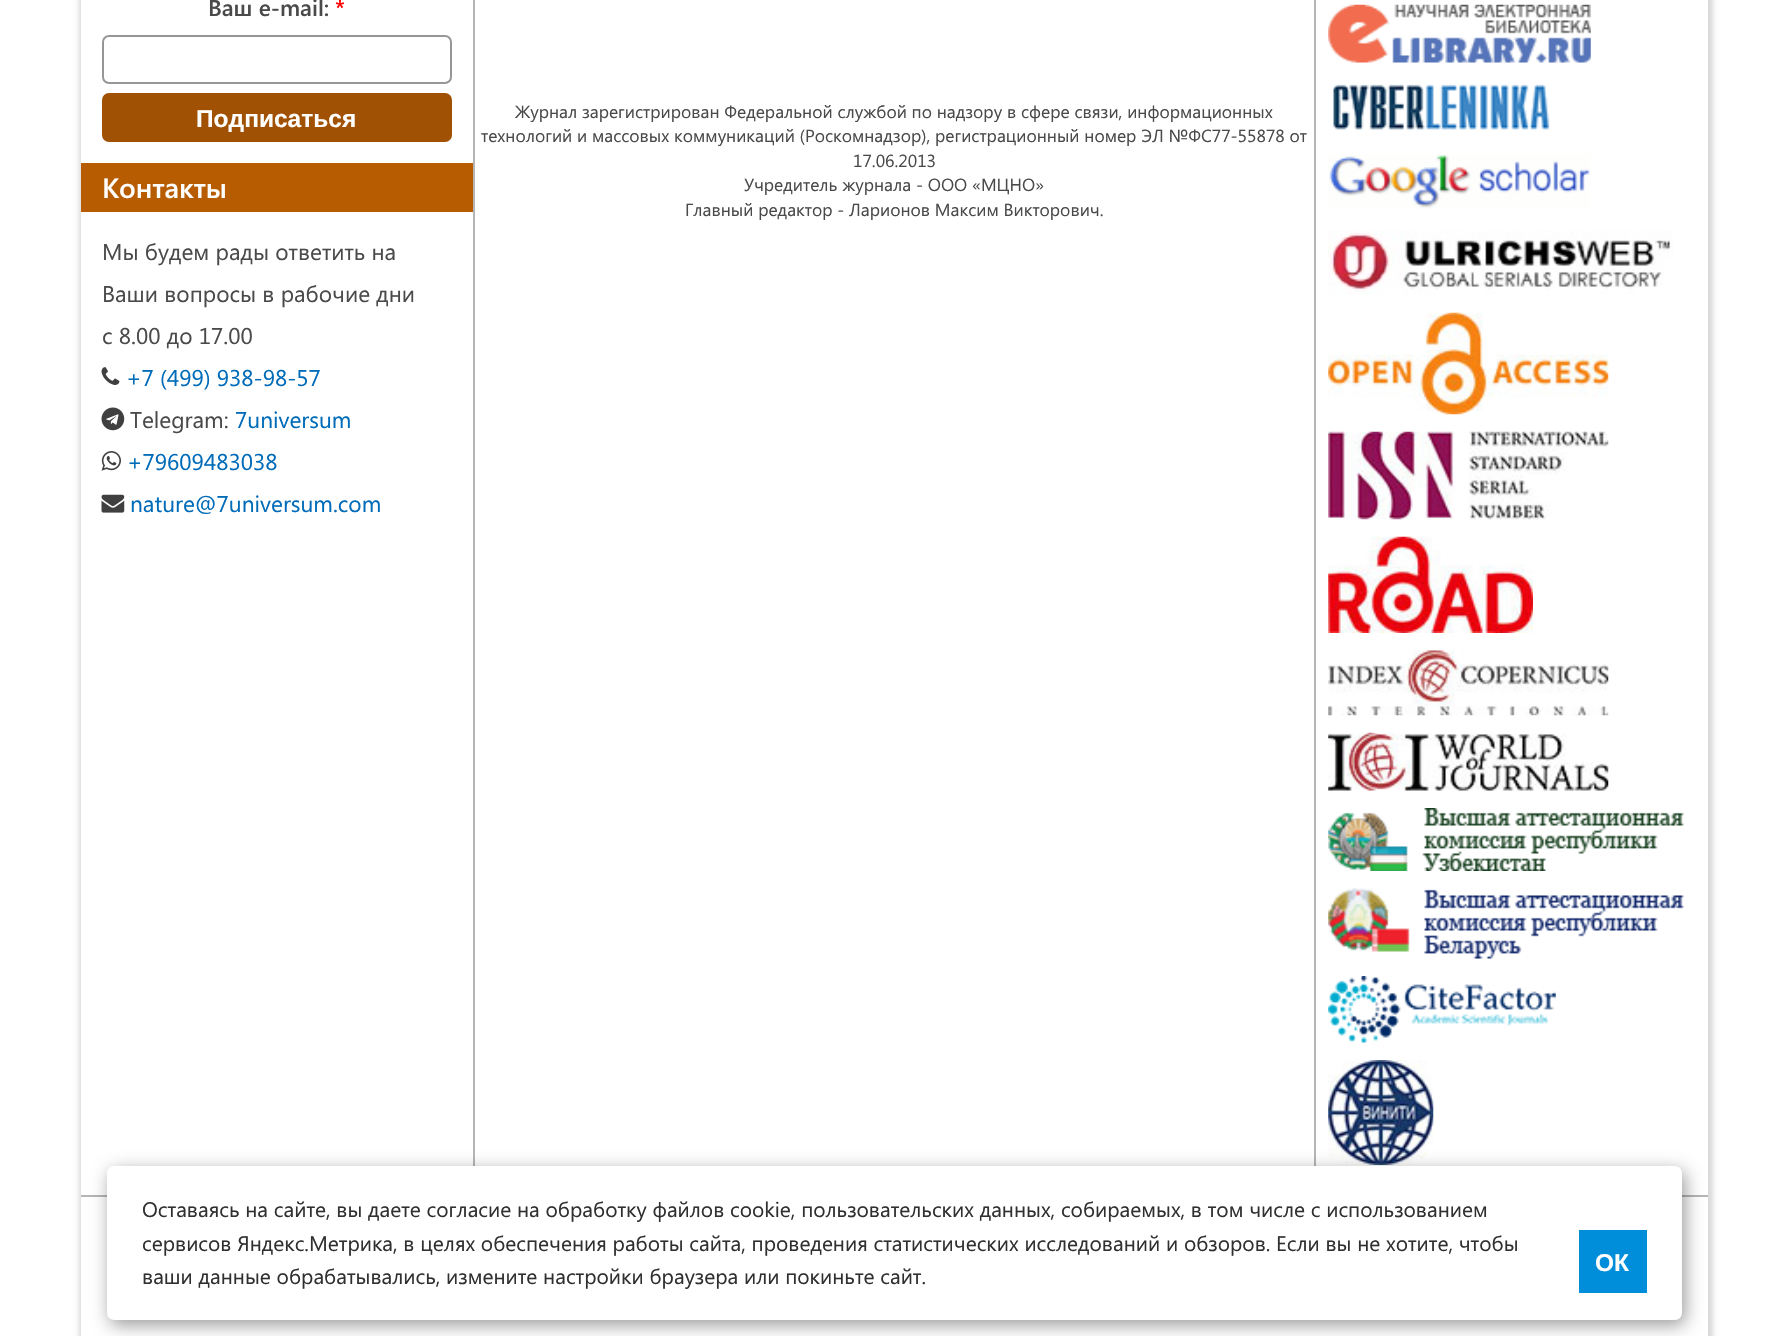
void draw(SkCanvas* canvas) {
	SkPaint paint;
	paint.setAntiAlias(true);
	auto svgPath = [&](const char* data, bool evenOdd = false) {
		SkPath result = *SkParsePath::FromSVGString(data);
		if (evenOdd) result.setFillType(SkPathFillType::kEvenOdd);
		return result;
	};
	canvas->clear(0xffffffff);
	canvas->save();
	canvas->clipPath(svgPath("M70 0H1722V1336H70ZM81-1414H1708V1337H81Z", true), true);
	paint.setColor(0x26000000);
	paint.setMaskFilter(SkMaskFilter::MakeBlur(kNormal_SkBlurStyle, 2.5));
	canvas->drawRect(SkRect::MakeXYWH(79, -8, 1634, 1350), paint);
	paint.setMaskFilter(nullptr);
	canvas->restore();
	paint.setColor(0xffb5b5b5);
	canvas->drawRect(SkRect::MakeXYWH(473, 0, 2, 1166), paint);
	SkFont f1(fontMgr->matchFamilyStyle("Segoe UI", SkFontStyle(600, SkFontStyle::kNormal_Width, SkFontStyle::kUpright_Slant)), 22.75);
	f1.setSubpixel(true);
	paint.setColor(0xff4a4a4a);
	canvas->drawString("Ваш e-mail:", 208, 16, f1, paint);
	paint.setColor(0xffff0000);
	canvas->drawString("*", 335, 16, f1, paint);
	paint.setStroke(true);
	paint.setStrokeWidth(2);
	paint.setColor(0xff969696);
	canvas->drawRoundRect(SkRect::MakeXYWH(103, 36, 348, 47), 6, 6, paint);
	paint.setStroke(false);
	paint.setColor(0xffa05103);
	canvas->drawRoundRect(SkRect::MakeXYWH(102, 93, 350, 49), 7, 7, paint);
	SkFont f2(fontMgr->matchFamilyStyle("Liberation Sans", SkFontStyle::Bold()), 24.5);
	f2.setSubpixel(true);
	paint.setColor(0xffffffff);
	canvas->drawString("Подписаться", 196, 127, f2, paint);
	paint.setColor(0xffb75c00);
	canvas->drawRect(SkRect::MakeXYWH(81, 163, 392, 49), paint);
	SkFont f3(fontMgr->matchFamilyStyle("Segoe UI", SkFontStyle(600, SkFontStyle::kNormal_Width, SkFontStyle::kUpright_Slant)), 28);
	f3.setSubpixel(true);
	paint.setColor(0xffffffff);
	canvas->drawString("Контакты", 102, 198, f3, paint);
	SkFont f4(fontMgr->matchFamilyStyle("Segoe UI", SkFontStyle::Normal()), 22.75);
	f4.setSubpixel(true);
	paint.setColor(0xff4a4a4a);
	canvas->drawString("Мы будем рады ответить на", 102, 260, f4, paint);
	canvas->drawString("Ваши вопросы в рабочие дни", 102, 302, f4, paint);
	canvas->drawString("с 8.00 до 17.00", 102, 344, f4, paint);
	canvas->drawImageRect(SkImages::DeferredFromEncodedData(SkData::MakeFromFileName("img1.png")), SkRect::MakeXYWH(101, 367, 19, 18), SkSamplingOptions());
	paint.setColor(0xff006bb8);
	canvas->drawString("+7 (499) 938-98-57", 126, 386, f4, paint);
	canvas->drawImageRect(SkImages::DeferredFromEncodedData(SkData::MakeFromFileName("img2.png")), SkRect::MakeXYWH(101, 407, 24, 24), SkSamplingOptions());
	paint.setColor(0xff4a4a4a);
	canvas->drawString("Telegram:", 130, 428, f4, paint);
	paint.setColor(0xff006bb8);
	canvas->drawString("7universum", 235, 428, f4, paint);
	canvas->drawImageRect(SkImages::DeferredFromEncodedData(SkData::MakeFromFileName("img3.png")), SkRect::MakeXYWH(101, 451, 20, 20), SkSamplingOptions());
	canvas->drawString("+79609483038", 127, 470, f4, paint);
	canvas->drawImageRect(SkImages::DeferredFromEncodedData(SkData::MakeFromFileName("img4.png")), SkRect::MakeXYWH(101, 494, 24, 19), SkSamplingOptions());
	canvas->drawString("nature@7universum.com", 130, 512, f4, paint);
	SkFont f5(fontMgr->matchFamilyStyle("Segoe UI", SkFontStyle::Normal()), 17.5);
	f5.setSubpixel(true);
	paint.setColor(0xff4a4a4a);
	canvas->drawString("Журнал зарегистрирован Федеральной службой по надзору в сфере связи, информационных", 515, 118, f5, paint);
	canvas->drawString("технологий и массовых коммуникаций (Роскомнадзор), регистрационный номер ЭЛ №ФС77-55878 от", 481, 142, f5, paint);
	canvas->drawString("17.06.2013", 853, 167, f5, paint);
	canvas->drawString("Учредитель журнала - ООО «МЦНО»", 744, 191, f5, paint);
	canvas->drawString("Главный редактор - Ларионов Максим Викторович.", 685, 216, f5, paint);
	paint.setColor(0xffb5b5b5);
	canvas->drawRect(SkRect::MakeXYWH(1314, 0, 2, 1166), paint);
	canvas->drawImageRect(SkImages::DeferredFromEncodedData(SkData::MakeFromFileName("img5.png")), SkRect::MakeXYWH(1328, 4, 263, 59), SkSamplingOptions());
	canvas->drawImageRect(SkImages::DeferredFromEncodedData(SkData::MakeFromFileName("img6.png")), SkRect::MakeXYWH(1333, 84, 217, 46), SkSamplingOptions());
	canvas->drawImageRect(SkImages::DeferredFromEncodedData(SkData::MakeFromFileName("img7.png")), SkRect::MakeXYWH(1328, 154, 262, 55), SkSamplingOptions());
	canvas->drawImageRect(SkImages::DeferredFromEncodedData(SkData::MakeFromFileName("img8.png")), SkRect::MakeXYWH(1328, 230, 345, 65), SkSamplingOptions());
	canvas->drawImageRect(SkImages::DeferredFromEncodedData(SkData::MakeFromFileName("img9.png")), SkRect::MakeXYWH(1328, 312, 281, 103), SkSamplingOptions());
	canvas->drawImageRect(SkImages::DeferredFromEncodedData(SkData::MakeFromFileName("img10.png")), SkRect::MakeXYWH(1328, 431, 281, 89), SkSamplingOptions());
	canvas->drawImageRect(SkImages::DeferredFromEncodedData(SkData::MakeFromFileName("img11.png")), SkRect::MakeXYWH(1328, 536, 205, 97), SkSamplingOptions());
	canvas->drawImageRect(SkImages::DeferredFromEncodedData(SkData::MakeFromFileName("img12.png")), SkRect::MakeXYWH(1328, 650, 281, 66), SkSamplingOptions());
	canvas->drawImageRect(SkImages::DeferredFromEncodedData(SkData::MakeFromFileName("img13.png")), SkRect::MakeXYWH(1328, 732, 281, 59), SkSamplingOptions());
	canvas->drawImageRect(SkImages::DeferredFromEncodedData(SkData::MakeFromFileName("img14.png")), SkRect::MakeXYWH(1328, 808, 356, 63), SkSamplingOptions());
	canvas->drawImageRect(SkImages::DeferredFromEncodedData(SkData::MakeFromFileName("img15.png")), SkRect::MakeXYWH(1328, 888, 356, 71), SkSamplingOptions());
	canvas->drawImageRect(SkImages::DeferredFromEncodedData(SkData::MakeFromFileName("img16.png")), SkRect::MakeXYWH(1328, 976, 228, 67), SkSamplingOptions());
	canvas->drawImageRect(SkImages::DeferredFromEncodedData(SkData::MakeFromFileName("img17.png")), SkRect::MakeXYWH(1328, 1060, 106, 105), SkSamplingOptions());
	canvas->drawRect(SkRect::MakeXYWH(81, 1195, 1627, 2), paint);
	paint.setColor(0x66000000);
	paint.setMaskFilter(SkMaskFilter::MakeBlur(kNormal_SkBlurStyle, 9));
	canvas->drawRoundRect(SkRect::MakeXYWH(110, 1171, 1575, 154), 7, 7, paint);
	paint.setMaskFilter(nullptr);
	paint.setColor(0xffffffff);
	canvas->drawRoundRect(SkRect::MakeXYWH(107, 1166, 1575, 154), 7, 7, paint);
	SkFont f6(fontMgr->matchFamilyStyle("Segoe UI", SkFontStyle::Normal()), 21);
	f6.setSubpixel(true);
	paint.setColor(0xff303030);
	canvas->drawString("Оставаясь на сайте, вы даете согласие на обработку файлов cookie, пользовательских данных, собираемых, в том числе с использованием", 142, 1217, f6, paint);
	canvas->drawString("сервисов Яндекс.Метрика, в целях обеспечения работы сайта, проведения статистических исследований и обзоров. Если вы не хотите, чтобы", 142, 1251, f6, paint);
	canvas->drawString("ваши данные обрабатывались, измените настройки браузера или покиньте сайт.", 142, 1284, f6, paint);
	paint.setColor(0xff008edb);
	canvas->drawRect(SkRect::MakeXYWH(1579, 1230, 68, 63), paint);
	paint.setColor(0xffffffff);
	canvas->drawString("ОК", 1595, 1271, f2, paint);
}
